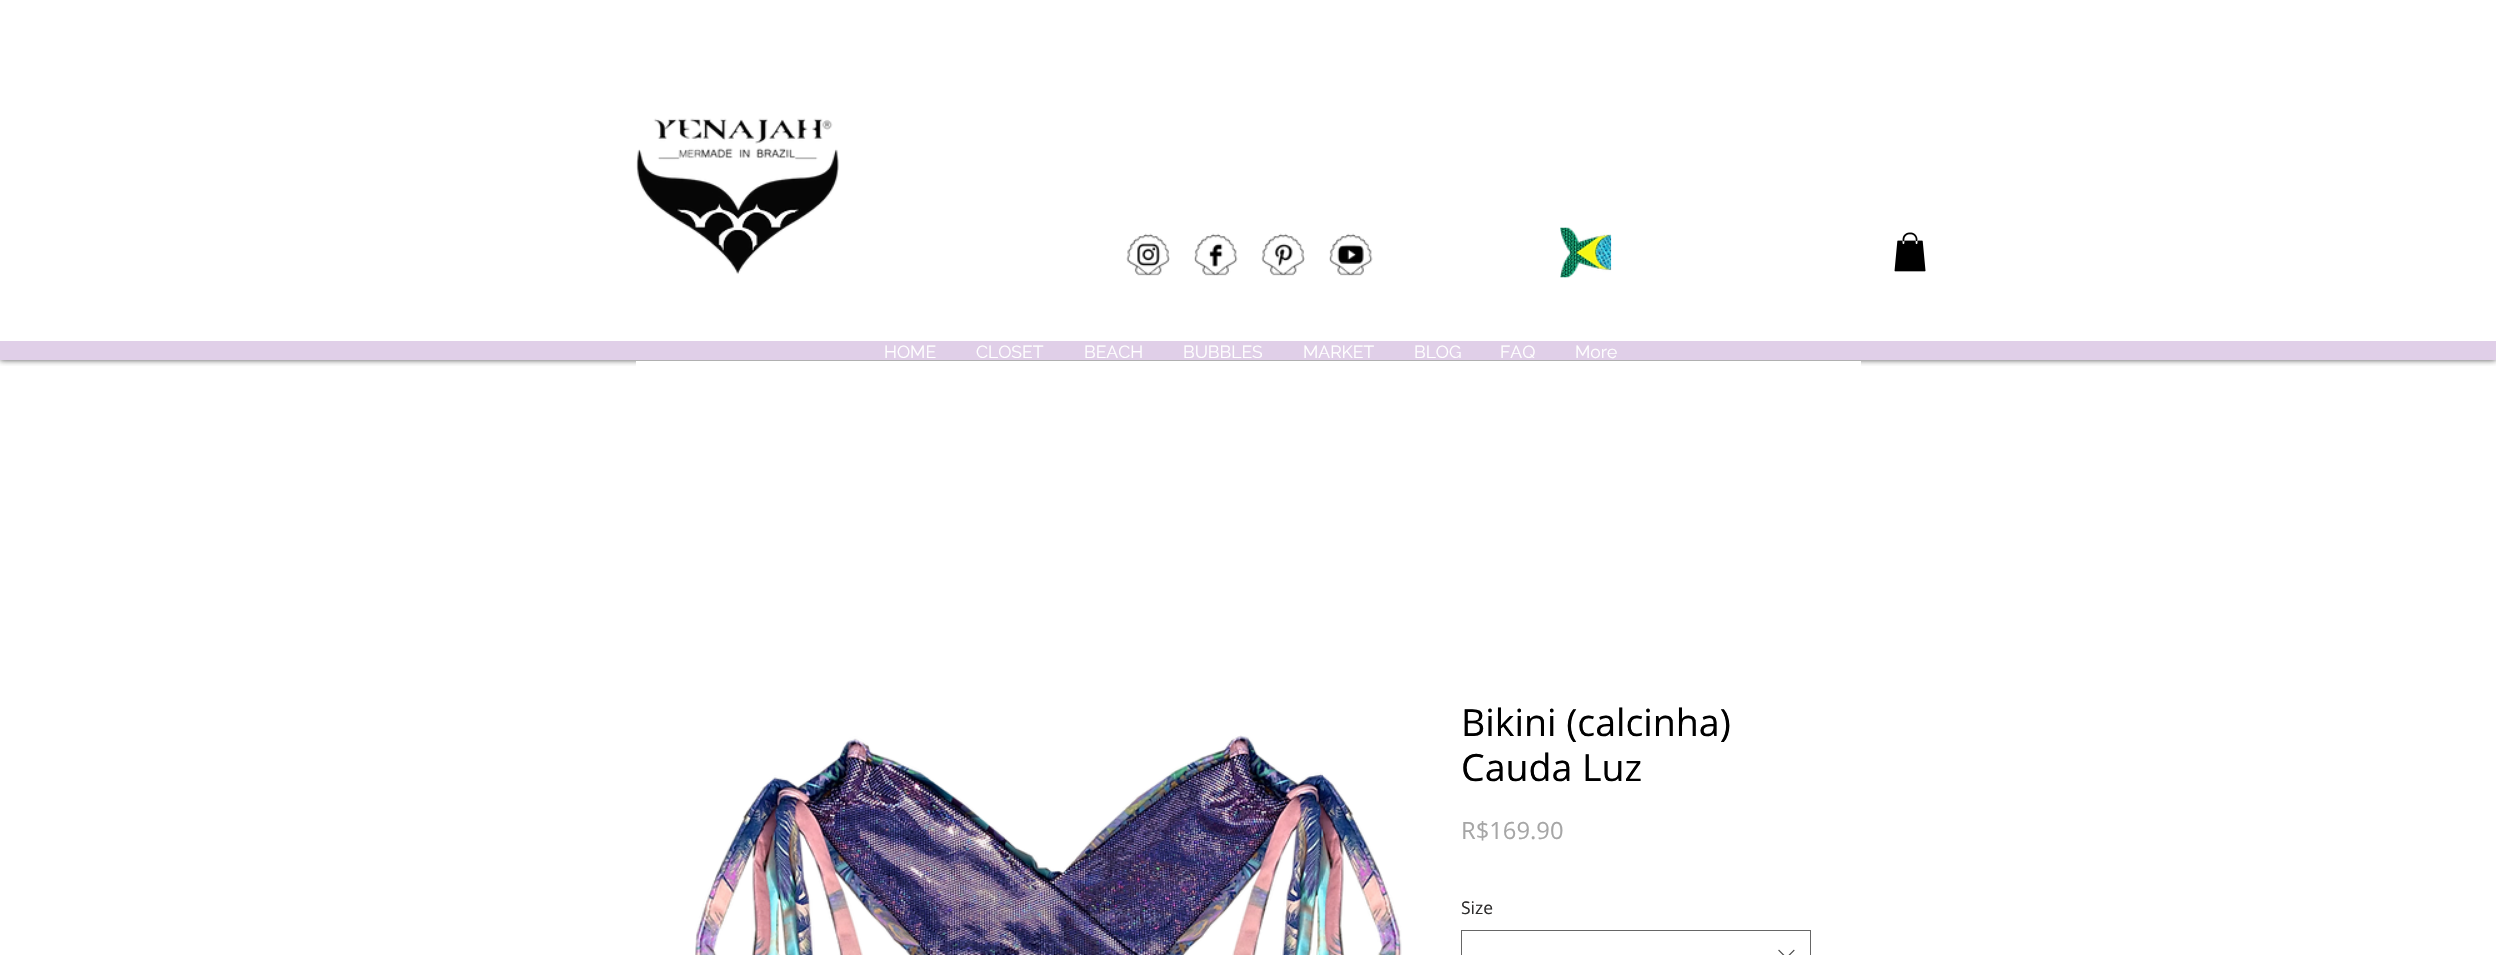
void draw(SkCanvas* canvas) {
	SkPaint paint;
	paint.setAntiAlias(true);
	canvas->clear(0xffffffff);
	canvas->save();
	canvas->clipRect(SkRect::MakeXYWH(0, 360, 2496, 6));
	paint.setColor(0xb3000000);
	paint.setMaskFilter(SkMaskFilter::MakeBlur(kNormal_SkBlurStyle, 3));
	canvas->drawRect(SkRect::MakeXYWH(0, 0, 2496, 360), paint);
	paint.setMaskFilter(nullptr);
	canvas->restore();
	paint.setColor(0xffe0cfe8);
	canvas->drawRect(SkRect::MakeXYWH(0, 341, 2496, 19), paint);
	canvas->drawImageRect(SkImages::DeferredFromEncodedData(SkData::MakeFromFileName("img1.png")), SkRect::MakeXYWH(636, 118, 203, 156), SkSamplingOptions());
	canvas->drawImageRect(SkImages::DeferredFromEncodedData(SkData::MakeFromFileName("img2.png")), SkRect::MakeXYWH(1126, 233, 44, 43), SkSamplingOptions());
	canvas->drawImageRect(SkImages::DeferredFromEncodedData(SkData::MakeFromFileName("img3.png")), SkRect::MakeXYWH(1194, 233, 44, 43), SkSamplingOptions());
	canvas->drawImageRect(SkImages::DeferredFromEncodedData(SkData::MakeFromFileName("img4.png")), SkRect::MakeXYWH(1261, 233, 44, 43), SkSamplingOptions());
	canvas->drawImageRect(SkImages::DeferredFromEncodedData(SkData::MakeFromFileName("img5.png")), SkRect::MakeXYWH(1329, 233, 44, 43), SkSamplingOptions());
	canvas->drawImageRect(SkImages::DeferredFromEncodedData(SkData::MakeFromFileName("img6.png")), SkRect::MakeXYWH(1560, 227, 52, 51), SkSamplingOptions());
	canvas->drawImageRect(SkImages::DeferredFromEncodedData(SkData::MakeFromFileName("img7.png")), SkRect::MakeXYWH(1894, 232, 32, 40), SkSamplingOptions());
	SkFont f1(fontMgr->matchFamilyStyle("Raleway", SkFontStyle::Normal()), 17.5);
	f1.setSubpixel(true);
	paint.setColor(0xffffffff);
	canvas->drawString("HOME", 884, 358, f1, paint);
	canvas->drawString("CLOSET", 976, 358, f1, paint);
	canvas->drawString("BEACH", 1084, 358, f1, paint);
	canvas->drawString("BUBBLES", 1183, 358, f1, paint);
	canvas->drawString("MARKET", 1303, 358, f1, paint);
	canvas->drawString("BLOG", 1414, 358, f1, paint);
	canvas->drawString("FAQ", 1500, 358, f1, paint);
	canvas->drawString("More", 1575, 358, f1, paint);
	canvas->drawRect(SkRect::MakeXYWH(636, 361, 1225, 6), paint);
	canvas->drawImageRect(SkImages::DeferredFromEncodedData(SkData::MakeFromFileName("img8.png")), SkRect::MakeXYWH(695, 735, 707, 220), SkSamplingOptions());
	SkFont f2(fontMgr->matchFamilyStyle("Open Sans", SkFontStyle::Normal()), 37.5);
	f2.setSubpixel(true);
	paint.setColor(0xff000000);
	canvas->drawString("Bikini (calcinha)", 1461, 736, f2, paint);
	canvas->drawString("Cauda Luz", 1461, 781, f2, paint);
	SkFont f3(fontMgr->matchFamilyStyle("Open Sans", SkFontStyle::Normal()), 23.75);
	f3.setSubpixel(true);
	paint.setColor(0xffa6a6a6);
	canvas->drawString("R$169.90", 1461, 839, f3, paint);
	SkFont f4(fontMgr->matchFamilyStyle("Open Sans", SkFontStyle::Normal()), 17.5);
	f4.setSubpixel(true);
	paint.setColor(0xff2f2e2e);
	canvas->drawString("Size", 1461, 914, f4, paint);
	paint.setStroke(true);
	paint.setStrokeWidth(1);
	paint.setColor(0xff666666);
	canvas->drawRect(SkRect::MakeXYWH(1461.5, 930.5, 349, 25), paint);
	canvas->drawImageRect(SkImages::DeferredFromEncodedData(SkData::MakeFromFileName("img9.png")), SkRect::MakeXYWH(1778, 949, 17, 6), SkSamplingOptions());
}
